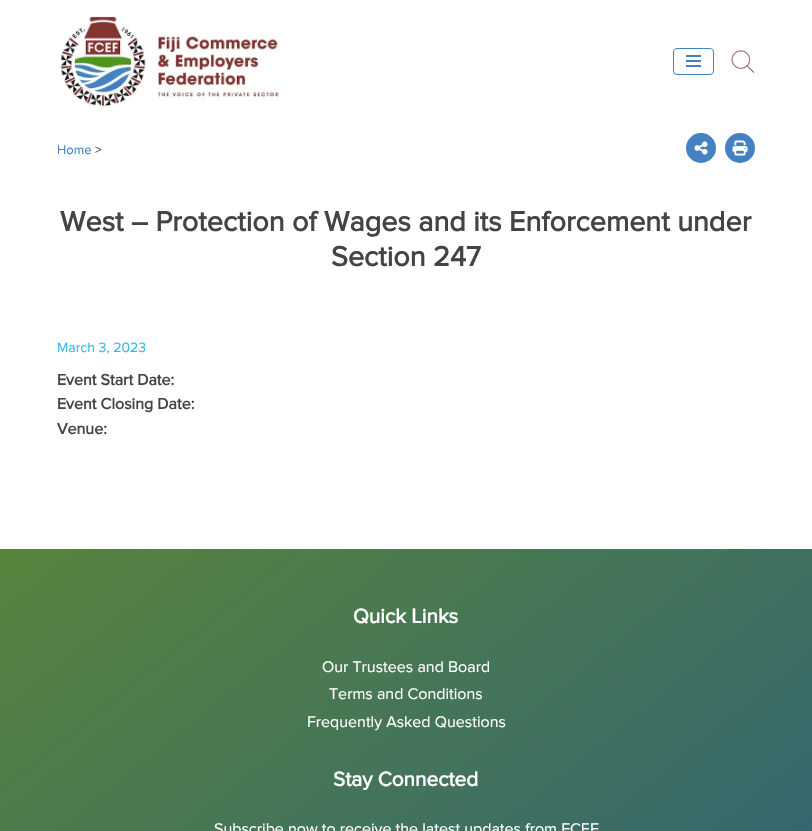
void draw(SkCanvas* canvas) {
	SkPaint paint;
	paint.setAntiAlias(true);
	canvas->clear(0xffffffff);
	canvas->drawImageRect(SkImages::DeferredFromEncodedData(SkData::MakeFromFileName("img1.png")), SkRect::MakeXYWH(60, 16, 220, 90), SkSamplingOptions());
	paint.setStroke(true);
	paint.setStrokeWidth(1);
	paint.setColor(0xff4381c1);
	canvas->drawRoundRect(SkRect::MakeXYWH(673.5, 48.5, 40, 26), 3.5, 3.5, paint);
	paint.setStroke(false);
	canvas->drawRect(SkRect::MakeXYWH(686, 55, 15, 2), paint);
	canvas->drawRect(SkRect::MakeXYWH(686, 60, 15, 2), paint);
	canvas->drawRect(SkRect::MakeXYWH(686, 65, 15, 2), paint);
	canvas->drawImageRect(SkImages::DeferredFromEncodedData(SkData::MakeFromFileName("img2.png")), SkRect::MakeXYWH(731, 50, 24, 23), SkSamplingOptions());
	SkFont f1(fontMgr->matchFamilyStyle("Proxima Nova", SkFontStyle::Normal()), 13);
	f1.setSubpixel(true);
	canvas->drawString("Home", 57, 154, f1, paint);
	paint.setColor(0xff454444);
	canvas->drawString(">", 95, 154, f1, paint);
	paint.setColor(0xff4381c1);
	canvas->drawCircle(701, 148, 15, paint);
	canvas->drawImageRect(SkImages::DeferredFromEncodedData(SkData::MakeFromFileName("img3.png")), SkRect::MakeXYWH(694, 141, 14, 14), SkSamplingOptions());
	canvas->drawCircle(740, 148, 15, paint);
	canvas->drawImageRect(SkImages::DeferredFromEncodedData(SkData::MakeFromFileName("img4.png")), SkRect::MakeXYWH(732, 140, 16, 16), SkSamplingOptions());
	SkFont f2(fontMgr->matchFamilyStyle("Proxima Nova", SkFontStyle::Bold()), 28.8);
	f2.setSubpixel(true);
	paint.setColor(0xff454444);
	canvas->drawString("West – Protection of Wages and its Enforcement under", 60, 231, f2, paint);
	canvas->drawString("Section 247", 331, 266, f2, paint);
	SkFont f3(fontMgr->matchFamilyStyle("Proxima Nova", SkFontStyle::Normal()), 14);
	f3.setSubpixel(true);
	paint.setColor(0xff2bbae8);
	canvas->drawString("March 3, 2023", 57, 352, f3, paint);
	SkFont f4(fontMgr->matchFamilyStyle("Proxima Nova", SkFontStyle::Bold()), 16);
	f4.setSubpixel(true);
	paint.setColor(0xff454444);
	canvas->drawString("Event Start Date:", 57, 385, f4, paint);
	canvas->drawString("Event Closing Date:", 57, 409, f4, paint);
	canvas->drawString("Venue:", 57, 434, f4, paint);
	{
		const SkColor colors[] = {0xff285e80, 0xff58843e};
		const float stops[] = {0, 0.99};
		const SkPoint ends[] = {{716, 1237}, {96, 471}};
		paint.setShader(SkGradientShader::MakeLinear(ends, colors, stops, 2, SkTileMode::kClamp));
		paint.setAlpha(255);
	}
	canvas->drawRect(SkRect::MakeXYWH(0, 549, 812, 282), paint);
	SkFont f5(fontMgr->matchFamilyStyle("Proxima Nova", SkFontStyle::Bold()), 20.75);
	f5.setSubpixel(true);
	paint.setShader(nullptr);
	paint.setColor(0xffffffff);
	canvas->drawString("Quick Links", 353, 623, f5, paint);
	SkFont f6(fontMgr->matchFamilyStyle("Proxima Nova", SkFontStyle::Normal()), 16);
	f6.setSubpixel(true);
	canvas->drawString("Our Trustees and Board", 322, 672, f6, paint);
	canvas->drawString("Terms and Conditions", 329, 699, f6, paint);
	canvas->drawString("Frequently Asked Questions", 307, 727, f6, paint);
	canvas->drawString("Stay Connected", 333, 786, f5, paint);
	canvas->drawString("Subscribe now to receive the latest updates from FCEF", 214, 834, f6, paint);
}
